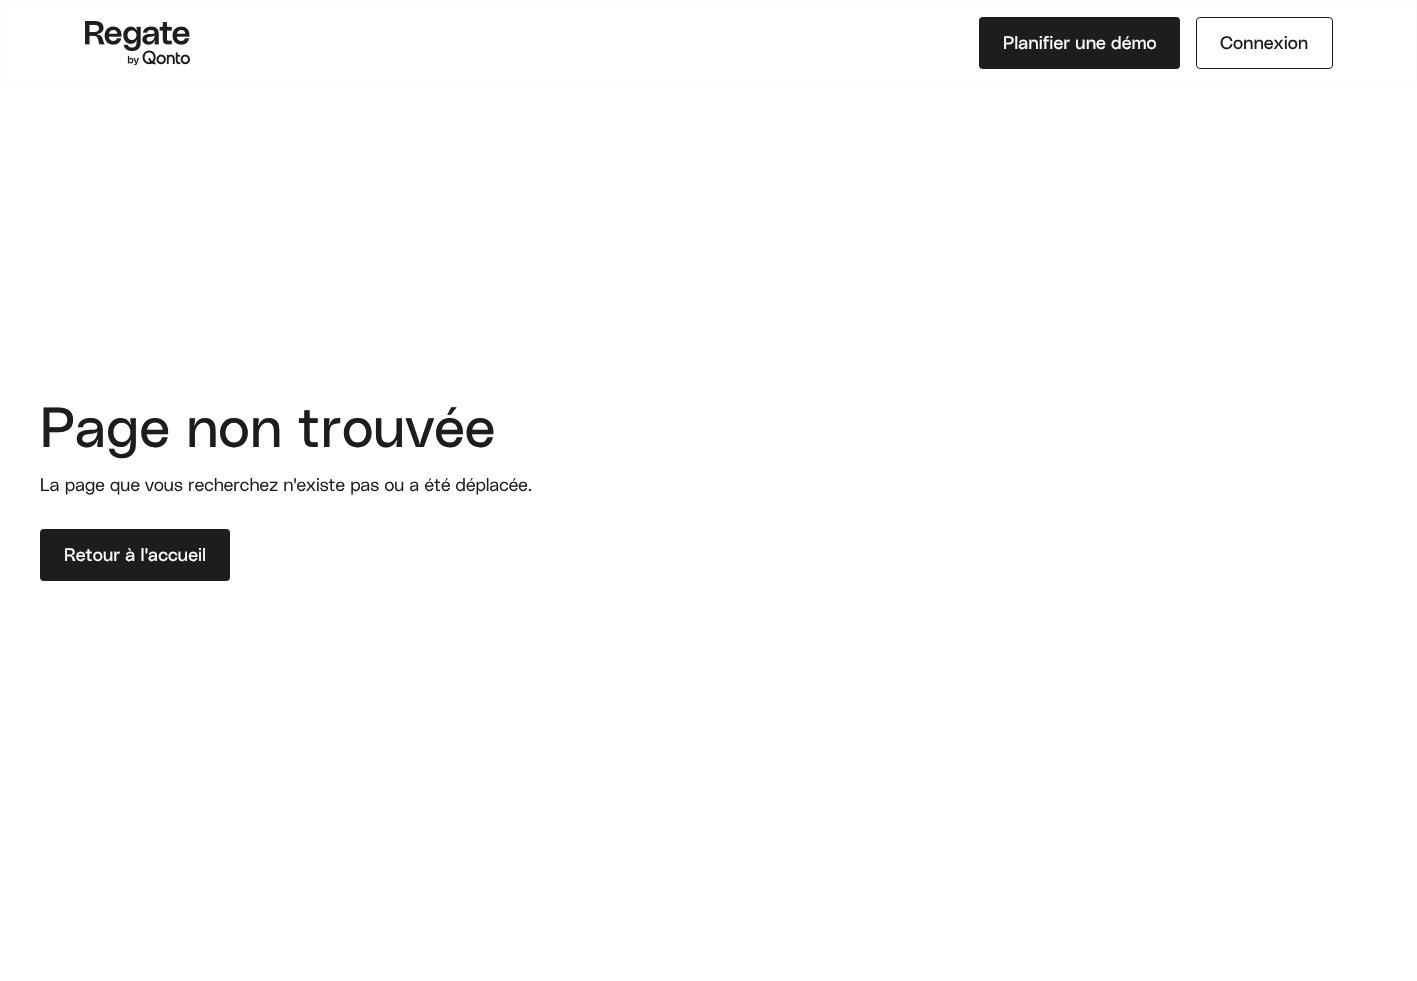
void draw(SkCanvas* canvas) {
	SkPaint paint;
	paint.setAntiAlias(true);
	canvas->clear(0xffffffff);
	paint.setStroke(true);
	paint.setStrokeWidth(1);
	paint.setColor(0xfffbfcfd);
	canvas->drawRect(SkRect::MakeXYWH(0.5, 0.5, 1416, 85), paint);
	canvas->drawImageRect(SkImages::DeferredFromEncodedData(SkData::MakeFromFileName("img1.png")), SkRect::MakeXYWH(85, 21, 105, 44), SkSamplingOptions());
	paint.setStroke(false);
	paint.setColor(0xff1d1d1b);
	canvas->drawRoundRect(SkRect::MakeXYWH(979, 17, 201, 52), 4, 4, paint);
	SkFont f1(fontMgr->matchFamilyStyle("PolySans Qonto", SkFontStyle::Normal()), 18);
	f1.setSubpixel(true);
	paint.setColor(0xffffffff);
	canvas->drawString("Planifier une démo", 1003, 49, f1, paint);
	paint.setStroke(true);
	paint.setColor(0xff1d1d1b);
	canvas->drawRoundRect(SkRect::MakeXYWH(1196.5, 17.5, 136, 51), 3.5, 3.5, paint);
	paint.setStroke(false);
	canvas->drawString("Connexion", 1220, 49, f1, paint);
	SkFont f2(fontMgr->matchFamilyStyle("PolySans Qonto", SkFontStyle::Normal()), 56);
	f2.setSubpixel(true);
	canvas->drawString("Page non trouvée", 40, 447, f2, paint);
	SkFont f3(fontMgr->matchFamilyStyle("PolySans Qonto", SkFontStyle(300, SkFontStyle::kNormal_Width, SkFontStyle::kUpright_Slant)), 18);
	f3.setSubpixel(true);
	canvas->drawString("La page que vous recherchez n'existe pas ou a été déplacée.", 40, 491, f3, paint);
	canvas->drawRoundRect(SkRect::MakeXYWH(40, 529, 190, 52), 4, 4, paint);
	paint.setColor(0xffffffff);
	canvas->drawString("Retour à l'accueil", 64, 561, f1, paint);
}
